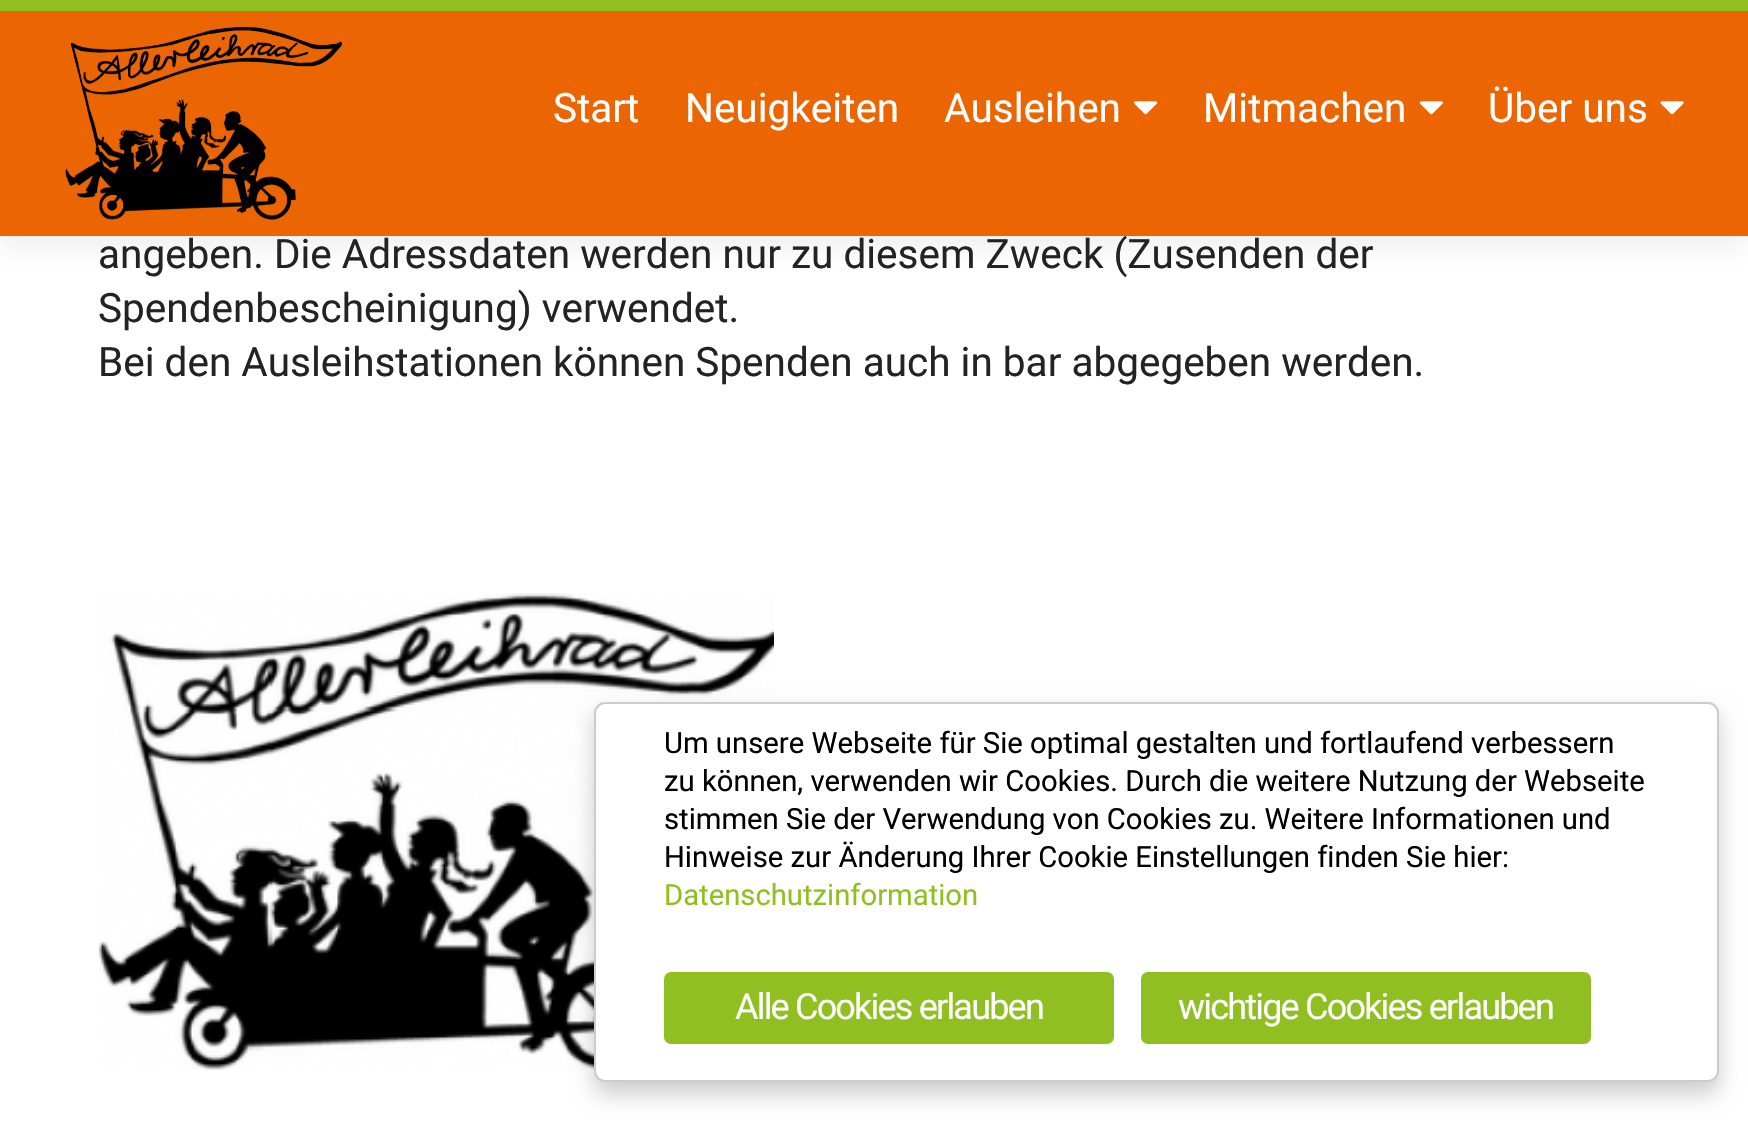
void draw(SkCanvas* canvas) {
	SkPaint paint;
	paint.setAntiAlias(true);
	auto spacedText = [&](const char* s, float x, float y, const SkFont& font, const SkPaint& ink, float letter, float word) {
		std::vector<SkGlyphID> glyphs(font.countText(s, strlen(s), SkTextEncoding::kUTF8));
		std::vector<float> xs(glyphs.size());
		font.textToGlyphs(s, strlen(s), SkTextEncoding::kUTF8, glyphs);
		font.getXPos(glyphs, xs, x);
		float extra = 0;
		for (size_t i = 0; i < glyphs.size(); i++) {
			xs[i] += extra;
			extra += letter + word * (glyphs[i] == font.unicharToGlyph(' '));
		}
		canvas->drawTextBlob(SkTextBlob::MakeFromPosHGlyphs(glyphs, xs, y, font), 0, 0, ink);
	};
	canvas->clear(0xffffffff);
	paint.setColor(0x14323232);
	paint.setMaskFilter(SkMaskFilter::MakeBlur(kNormal_SkBlurStyle, 12.5));
	canvas->drawRect(SkRect::MakeXYWH(0, 11, 1748, 237), paint);
	paint.setMaskFilter(nullptr);
	SkFont f1(fontMgr->matchFamilyStyle("Roboto", SkFontStyle::Normal()), 40.5);
	f1.setSubpixel(true);
	paint.setColor(0xff232323);
	canvas->drawString("angeben. Die Adressdaten werden nur zu diesem Zweck (Zusenden der", 98, 268, f1, paint);
	paint.setColor(0xffeb6502);
	canvas->drawRect(SkRect::MakeXYWH(0, 11, 1748, 225), paint);
	paint.setColor(0xff8fbf21);
	canvas->drawRect(SkRect::MakeXYWH(0, 0, 1748, 11), paint);
	canvas->drawImageRect(SkImages::DeferredFromEncodedData(SkData::MakeFromFileName("img1.png")), SkRect::MakeXYWH(65, 27, 277, 193), SkSamplingOptions());
	paint.setColor(0xffffffff);
	canvas->drawString("Start", 553, 122, f1, paint);
	canvas->drawString("Neuigkeiten", 685, 122, f1, paint);
	canvas->drawString("Ausleihen", 944, 122, f1, paint);
	canvas->drawImageRect(SkImages::DeferredFromEncodedData(SkData::MakeFromFileName("img2.png")), SkRect::MakeXYWH(1134, 101, 24, 14), SkSamplingOptions());
	canvas->drawString("Mitmachen", 1203, 122, f1, paint);
	canvas->drawImageRect(SkImages::DeferredFromEncodedData(SkData::MakeFromFileName("img3.png")), SkRect::MakeXYWH(1419, 101, 24, 14), SkSamplingOptions());
	canvas->drawString("Über uns", 1488, 122, f1, paint);
	canvas->drawImageRect(SkImages::DeferredFromEncodedData(SkData::MakeFromFileName("img4.png")), SkRect::MakeXYWH(1660, 101, 24, 14), SkSamplingOptions());
	paint.setColor(0xff232323);
	canvas->drawString("Spendenbescheinigung) verwendet.", 98, 322, f1, paint);
	canvas->drawString("Bei den Ausleihstationen können Spenden auch in bar abgegeben werden.", 98, 376, f1, paint);
	canvas->drawImageRect(SkImages::DeferredFromEncodedData(SkData::MakeFromFileName("img5.png")), SkRect::MakeXYWH(99, 593, 675, 477), SkSamplingOptions());
	paint.setColor(0x33000000);
	paint.setMaskFilter(SkMaskFilter::MakeBlur(kNormal_SkBlurStyle, 11));
	canvas->drawRoundRect(SkRect::MakeXYWH(594, 713, 1125, 381), 11, 11, paint);
	paint.setMaskFilter(nullptr);
	paint.setColor(0xffffffff);
	canvas->drawRoundRect(SkRect::MakeXYWH(595, 703, 1123, 378), 10, 10, paint);
	paint.setStroke(true);
	paint.setStrokeWidth(2);
	paint.setColor(0xffcccccc);
	canvas->drawRoundRect(SkRect::MakeXYWH(595, 703, 1123, 378), 10, 10, paint);
	SkFont f2(fontMgr->matchFamilyStyle("Roboto", SkFontStyle::Normal()), 29.25);
	f2.setSubpixel(true);
	paint.setStroke(false);
	paint.setColor(0xff000000);
	canvas->drawString("Um unsere Webseite für Sie optimal gestalten und fortlaufend verbessern", 664, 753, f2, paint);
	canvas->drawString("zu können, verwenden wir Cookies. Durch die weitere Nutzung der Webseite", 664, 791, f2, paint);
	canvas->drawString("stimmen Sie der Verwendung von Cookies zu. Weitere Informationen und", 664, 829, f2, paint);
	canvas->drawString("Hinweise zur Änderung Ihrer Cookie Einstellungen finden Sie hier:", 664, 867, f2, paint);
	paint.setColor(0xff8fbf21);
	canvas->drawString("Datenschutzinformation", 664, 905, f2, paint);
	paint.setColor(0xff8fbf20);
	canvas->drawRoundRect(SkRect::MakeXYWH(664, 972, 450, 72), 7, 7, paint);
	SkFont f3(fontMgr->matchFamilyStyle("Roboto", SkFontStyle::Normal()), 36);
	f3.setSubpixel(true);
	paint.setColor(0xffffffff);
	spacedText("Alle Cookies erlauben", 735, 1019, f3, paint, -1.8, 0);
	paint.setColor(0xff8fbf20);
	canvas->drawRoundRect(SkRect::MakeXYWH(1141, 972, 450, 72), 7, 7, paint);
	paint.setColor(0xffffffff);
	spacedText("wichtige Cookies erlauben", 1178, 1019, f3, paint, -1.8, 0);
}
